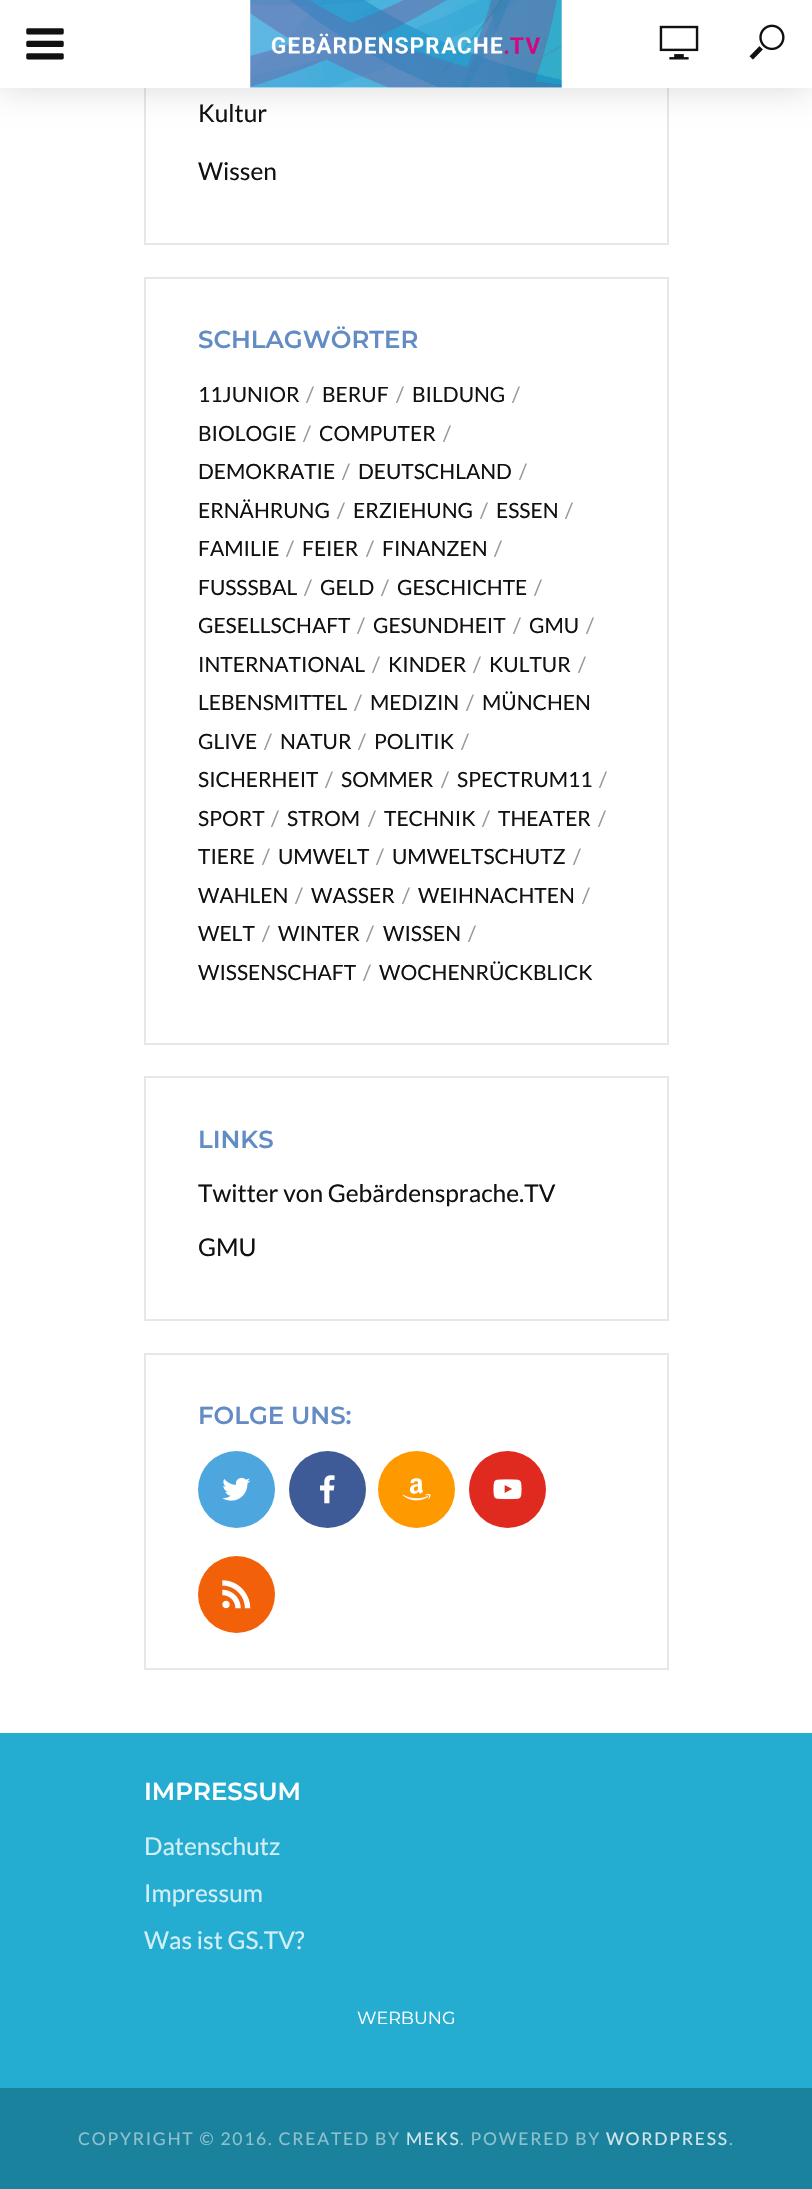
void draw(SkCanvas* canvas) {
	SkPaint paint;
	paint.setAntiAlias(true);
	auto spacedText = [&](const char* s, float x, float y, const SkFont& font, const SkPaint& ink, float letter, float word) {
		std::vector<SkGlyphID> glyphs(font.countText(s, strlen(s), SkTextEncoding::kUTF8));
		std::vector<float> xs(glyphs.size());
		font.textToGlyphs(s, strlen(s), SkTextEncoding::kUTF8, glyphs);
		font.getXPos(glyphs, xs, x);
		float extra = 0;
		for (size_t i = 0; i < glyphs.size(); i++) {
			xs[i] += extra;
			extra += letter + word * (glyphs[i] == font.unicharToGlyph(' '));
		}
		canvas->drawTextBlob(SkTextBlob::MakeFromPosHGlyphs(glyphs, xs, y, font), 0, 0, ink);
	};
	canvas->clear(0xffffffff);
	paint.setStroke(true);
	paint.setStrokeWidth(2);
	paint.setColor(0xffe7e7e7);
	canvas->drawRect(SkRect::MakeXYWH(145, -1, 523, 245), paint);
	paint.setStroke(false);
	paint.setColor(0x26000000);
	paint.setMaskFilter(SkMaskFilter::MakeBlur(kNormal_SkBlurStyle, 17.5));
	canvas->drawRect(SkRect::MakeXYWH(0, 0, 812, 88), paint);
	paint.setMaskFilter(nullptr);
	paint.setColor(0xffffffff);
	canvas->drawRect(SkRect::MakeXYWH(0, 0, 812, 88), paint);
	canvas->drawImageRect(SkImages::DeferredFromEncodedData(SkData::MakeFromFileName("img1.png")), SkRect::MakeXYWH(26, 28, 38, 32), SkSamplingOptions());
	canvas->drawImageRect(SkImages::DeferredFromEncodedData(SkData::MakeFromFileName("img2.png")), SkRect::MakeXYWH(250, 0, 312, 88), SkSamplingOptions());
	canvas->drawImageRect(SkImages::DeferredFromEncodedData(SkData::MakeFromFileName("img3.png")), SkRect::MakeXYWH(659, 25, 40, 35), SkSamplingOptions());
	canvas->drawImageRect(SkImages::DeferredFromEncodedData(SkData::MakeFromFileName("img4.png")), SkRect::MakeXYWH(749, 24, 36, 36), SkSamplingOptions());
	SkFont f1(fontMgr->matchFamilyStyle("Lato", SkFontStyle::Normal()), 24.5);
	f1.setSubpixel(true);
	paint.setColor(0xff111111);
	canvas->drawString("Kultur", 198, 122, f1, paint);
	canvas->drawString("Wissen", 198, 180, f1, paint);
	paint.setStroke(true);
	paint.setColor(0xffe7e7e7);
	canvas->drawRect(SkRect::MakeXYWH(145, 278, 523, 766), paint);
	SkFont f2(fontMgr->matchFamilyStyle("Montserrat", SkFontStyle(600, SkFontStyle::kNormal_Width, SkFontStyle::kUpright_Slant)), 24.5);
	f2.setSubpixel(true);
	paint.setStroke(false);
	paint.setColor(0xff638cc5);
	canvas->drawString("SCHLAGWÖRTER", 198, 348, f2, paint);
	SkFont f3(fontMgr->matchFamilyStyle("Lato", SkFontStyle::Normal()), 21);
	f3.setSubpixel(true);
	paint.setColor(0xff111111);
	canvas->drawString("11JUNIOR", 198, 402, f3, paint);
	paint.setColor(0xff999999);
	canvas->drawString("/", 306, 402, f3, paint);
	paint.setColor(0xff111111);
	canvas->drawString("BERUF", 322, 402, f3, paint);
	paint.setColor(0xff999999);
	canvas->drawString("/", 396, 402, f3, paint);
	paint.setColor(0xff111111);
	canvas->drawString("BILDUNG", 412, 402, f3, paint);
	paint.setColor(0xff999999);
	canvas->drawString("/", 512, 402, f3, paint);
	paint.setColor(0xff111111);
	canvas->drawString("BIOLOGIE", 198, 441, f3, paint);
	paint.setColor(0xff999999);
	canvas->drawString("/", 303, 441, f3, paint);
	paint.setColor(0xff111111);
	canvas->drawString("COMPUTER", 319, 441, f3, paint);
	paint.setColor(0xff999999);
	canvas->drawString("/", 443, 441, f3, paint);
	paint.setColor(0xff111111);
	canvas->drawString("DEMOKRATIE", 198, 479, f3, paint);
	paint.setColor(0xff999999);
	canvas->drawString("/", 342, 479, f3, paint);
	paint.setColor(0xff111111);
	canvas->drawString("DEUTSCHLAND", 358, 479, f3, paint);
	paint.setColor(0xff999999);
	canvas->drawString("/", 519, 479, f3, paint);
	paint.setColor(0xff111111);
	canvas->drawString("ERNÄHRUNG", 198, 518, f3, paint);
	paint.setColor(0xff999999);
	canvas->drawString("/", 337, 518, f3, paint);
	paint.setColor(0xff111111);
	canvas->drawString("ERZIEHUNG", 353, 518, f3, paint);
	paint.setColor(0xff999999);
	canvas->drawString("/", 480, 518, f3, paint);
	paint.setColor(0xff111111);
	canvas->drawString("ESSEN", 496, 518, f3, paint);
	paint.setColor(0xff999999);
	canvas->drawString("/", 565, 518, f3, paint);
	paint.setColor(0xff111111);
	canvas->drawString("FAMILIE", 198, 556, f3, paint);
	paint.setColor(0xff999999);
	canvas->drawString("/", 286, 556, f3, paint);
	paint.setColor(0xff111111);
	canvas->drawString("FEIER", 302, 556, f3, paint);
	paint.setColor(0xff999999);
	canvas->drawString("/", 366, 556, f3, paint);
	paint.setColor(0xff111111);
	canvas->drawString("FINANZEN", 382, 556, f3, paint);
	paint.setColor(0xff999999);
	canvas->drawString("/", 494, 556, f3, paint);
	paint.setColor(0xff111111);
	canvas->drawString("FUSSSBAL", 198, 595, f3, paint);
	paint.setColor(0xff999999);
	canvas->drawString("/", 304, 595, f3, paint);
	paint.setColor(0xff111111);
	canvas->drawString("GELD", 320, 595, f3, paint);
	paint.setColor(0xff999999);
	canvas->drawString("/", 381, 595, f3, paint);
	paint.setColor(0xff111111);
	canvas->drawString("GESCHICHTE", 397, 595, f3, paint);
	paint.setColor(0xff999999);
	canvas->drawString("/", 534, 595, f3, paint);
	paint.setColor(0xff111111);
	canvas->drawString("GESELLSCHAFT", 198, 633, f3, paint);
	paint.setColor(0xff999999);
	canvas->drawString("/", 357, 633, f3, paint);
	paint.setColor(0xff111111);
	canvas->drawString("GESUNDHEIT", 373, 633, f3, paint);
	paint.setColor(0xff999999);
	canvas->drawString("/", 513, 633, f3, paint);
	paint.setColor(0xff111111);
	canvas->drawString("GMU", 529, 633, f3, paint);
	paint.setColor(0xff999999);
	canvas->drawString("/", 586, 633, f3, paint);
	paint.setColor(0xff111111);
	canvas->drawString("INTERNATIONAL", 198, 672, f3, paint);
	paint.setColor(0xff999999);
	canvas->drawString("/", 372, 672, f3, paint);
	paint.setColor(0xff111111);
	canvas->drawString("KINDER", 388, 672, f3, paint);
	paint.setColor(0xff999999);
	canvas->drawString("/", 473, 672, f3, paint);
	paint.setColor(0xff111111);
	canvas->drawString("KULTUR", 489, 672, f3, paint);
	paint.setColor(0xff999999);
	canvas->drawString("/", 578, 672, f3, paint);
	paint.setColor(0xff111111);
	canvas->drawString("LEBENSMITTEL", 198, 710, f3, paint);
	paint.setColor(0xff999999);
	canvas->drawString("/", 354, 710, f3, paint);
	paint.setColor(0xff111111);
	canvas->drawString("MEDIZIN", 370, 710, f3, paint);
	paint.setColor(0xff999999);
	canvas->drawString("/", 466, 710, f3, paint);
	paint.setColor(0xff111111);
	canvas->drawString("MÜNCHEN", 482, 710, f3, paint);
	canvas->drawString("GLIVE", 198, 749, f3, paint);
	paint.setColor(0xff999999);
	canvas->drawString("/", 264, 749, f3, paint);
	paint.setColor(0xff111111);
	canvas->drawString("NATUR", 280, 749, f3, paint);
	paint.setColor(0xff999999);
	canvas->drawString("/", 358, 749, f3, paint);
	paint.setColor(0xff111111);
	canvas->drawString("POLITIK", 374, 749, f3, paint);
	paint.setColor(0xff999999);
	canvas->drawString("/", 461, 749, f3, paint);
	paint.setColor(0xff111111);
	canvas->drawString("SICHERHEIT", 198, 787, f3, paint);
	paint.setColor(0xff999999);
	canvas->drawString("/", 325, 787, f3, paint);
	paint.setColor(0xff111111);
	canvas->drawString("SOMMER", 341, 787, f3, paint);
	paint.setColor(0xff999999);
	canvas->drawString("/", 441, 787, f3, paint);
	paint.setColor(0xff111111);
	canvas->drawString("SPECTRUM11", 457, 787, f3, paint);
	paint.setColor(0xff999999);
	canvas->drawString("/", 599, 787, f3, paint);
	paint.setColor(0xff111111);
	canvas->drawString("SPORT", 198, 826, f3, paint);
	paint.setColor(0xff999999);
	canvas->drawString("/", 271, 826, f3, paint);
	paint.setColor(0xff111111);
	canvas->drawString("STROM", 287, 826, f3, paint);
	paint.setColor(0xff999999);
	canvas->drawString("/", 368, 826, f3, paint);
	paint.setColor(0xff111111);
	canvas->drawString("TECHNIK", 384, 826, f3, paint);
	paint.setColor(0xff999999);
	canvas->drawString("/", 482, 826, f3, paint);
	paint.setColor(0xff111111);
	canvas->drawString("THEATER", 498, 826, f3, paint);
	paint.setColor(0xff999999);
	canvas->drawString("/", 598, 826, f3, paint);
	paint.setColor(0xff111111);
	canvas->drawString("TIERE", 198, 864, f3, paint);
	paint.setColor(0xff999999);
	canvas->drawString("/", 262, 864, f3, paint);
	paint.setColor(0xff111111);
	canvas->drawString("UMWELT", 278, 864, f3, paint);
	paint.setColor(0xff999999);
	canvas->drawString("/", 376, 864, f3, paint);
	paint.setColor(0xff111111);
	canvas->drawString("UMWELTSCHUTZ", 392, 864, f3, paint);
	paint.setColor(0xff999999);
	canvas->drawString("/", 573, 864, f3, paint);
	paint.setColor(0xff111111);
	canvas->drawString("WAHLEN", 198, 903, f3, paint);
	paint.setColor(0xff999999);
	canvas->drawString("/", 295, 903, f3, paint);
	paint.setColor(0xff111111);
	canvas->drawString("WASSER", 311, 903, f3, paint);
	paint.setColor(0xff999999);
	canvas->drawString("/", 402, 903, f3, paint);
	paint.setColor(0xff111111);
	canvas->drawString("WEIHNACHTEN", 418, 903, f3, paint);
	paint.setColor(0xff999999);
	canvas->drawString("/", 582, 903, f3, paint);
	paint.setColor(0xff111111);
	canvas->drawString("WELT", 198, 941, f3, paint);
	paint.setColor(0xff999999);
	canvas->drawString("/", 262, 941, f3, paint);
	paint.setColor(0xff111111);
	canvas->drawString("WINTER", 278, 941, f3, paint);
	paint.setColor(0xff999999);
	canvas->drawString("/", 366, 941, f3, paint);
	paint.setColor(0xff111111);
	canvas->drawString("WISSEN", 383, 941, f3, paint);
	paint.setColor(0xff999999);
	canvas->drawString("/", 468, 941, f3, paint);
	paint.setColor(0xff111111);
	canvas->drawString("WISSENSCHAFT", 198, 980, f3, paint);
	paint.setColor(0xff999999);
	canvas->drawString("/", 363, 980, f3, paint);
	paint.setColor(0xff111111);
	canvas->drawString("WOCHENRÜCKBLICK", 379, 980, f3, paint);
	paint.setStroke(true);
	paint.setColor(0xffe7e7e7);
	canvas->drawRect(SkRect::MakeXYWH(145, 1077, 523, 243), paint);
	paint.setStroke(false);
	paint.setColor(0xff638cc5);
	canvas->drawString("LINKS", 198, 1148, f2, paint);
	paint.setColor(0xff111111);
	canvas->drawString("Twitter von Gebärdensprache.TV", 198, 1202, f1, paint);
	canvas->drawString("GMU", 198, 1256, f1, paint);
	paint.setStroke(true);
	paint.setColor(0xffe7e7e7);
	canvas->drawRect(SkRect::MakeXYWH(145, 1354, 523, 315), paint);
	paint.setStroke(false);
	paint.setColor(0xff638cc5);
	canvas->drawString("FOLGE UNS:", 198, 1424, f2, paint);
	paint.setColor(0xff4da7de);
	canvas->drawCircle(236.5, 1489.5, 38.5, paint);
	canvas->drawImageRect(SkImages::DeferredFromEncodedData(SkData::MakeFromFileName("img5.png")), SkRect::MakeXYWH(222, 1477, 29, 24), SkSamplingOptions());
	paint.setColor(0xff3e5b98);
	canvas->drawCircle(327.5, 1489.5, 38.5, paint);
	canvas->drawImageRect(SkImages::DeferredFromEncodedData(SkData::MakeFromFileName("img6.png")), SkRect::MakeXYWH(319, 1475, 16, 29), SkSamplingOptions());
	paint.setColor(0xffff9900);
	canvas->drawCircle(416.5, 1489.5, 38.5, paint);
	canvas->drawImageRect(SkImages::DeferredFromEncodedData(SkData::MakeFromFileName("img7.png")), SkRect::MakeXYWH(402, 1478, 29, 23), SkSamplingOptions());
	paint.setColor(0xffe02a20);
	canvas->drawCircle(507.5, 1489.5, 38.5, paint);
	canvas->drawImageRect(SkImages::DeferredFromEncodedData(SkData::MakeFromFileName("img8.png")), SkRect::MakeXYWH(493, 1479, 29, 21), SkSamplingOptions());
	paint.setColor(0xfff26109);
	canvas->drawCircle(236.5, 1594.5, 38.5, paint);
	canvas->drawImageRect(SkImages::DeferredFromEncodedData(SkData::MakeFromFileName("img9.png")), SkRect::MakeXYWH(222, 1580, 29, 29), SkSamplingOptions());
	paint.setColor(0xff24add1);
	canvas->drawRect(SkRect::MakeXYWH(0, 1733, 812, 355), paint);
	paint.setColor(0xffffffff);
	canvas->drawString("IMPRESSUM", 144, 1800, f2, paint);
	paint.setColor(0xffd3eff6);
	canvas->drawString("Datenschutz", 144, 1855, f1, paint);
	canvas->drawString("Impressum", 144, 1902, f1, paint);
	canvas->drawString("Was ist GS.TV?", 144, 1949, f1, paint);
	SkFont f4(fontMgr->matchFamilyStyle("Montserrat", SkFontStyle::Normal()), 17.5);
	f4.setSubpixel(true);
	paint.setColor(0xffffffff);
	canvas->drawString("WERBUNG", 357, 2024, f4, paint);
	paint.setColor(0xff1b829d);
	canvas->drawRect(SkRect::MakeXYWH(0, 2088, 812, 101), paint);
	SkFont f5(fontMgr->matchFamilyStyle("Lato", SkFontStyle::Normal()), 17.5);
	f5.setSubpixel(true);
	paint.setColor(0xff8dc1ce);
	spacedText("COPYRIGHT © 2016. CREATED BY", 78, 2145, f5, paint, 1.75, 0);
	paint.setColor(0xffd1e6eb);
	spacedText("MEKS", 406, 2145, f5, paint, 1.75, 0);
	paint.setColor(0xff8dc1ce);
	spacedText(". POWERED BY", 460, 2145, f5, paint, 1.75, 0);
	paint.setColor(0xffd1e6eb);
	spacedText("WORDPRESS", 606, 2145, f5, paint, 1.75, 0);
	paint.setColor(0xff8dc1ce);
	spacedText(".", 729, 2145, f5, paint, 1.75, 0);
}
